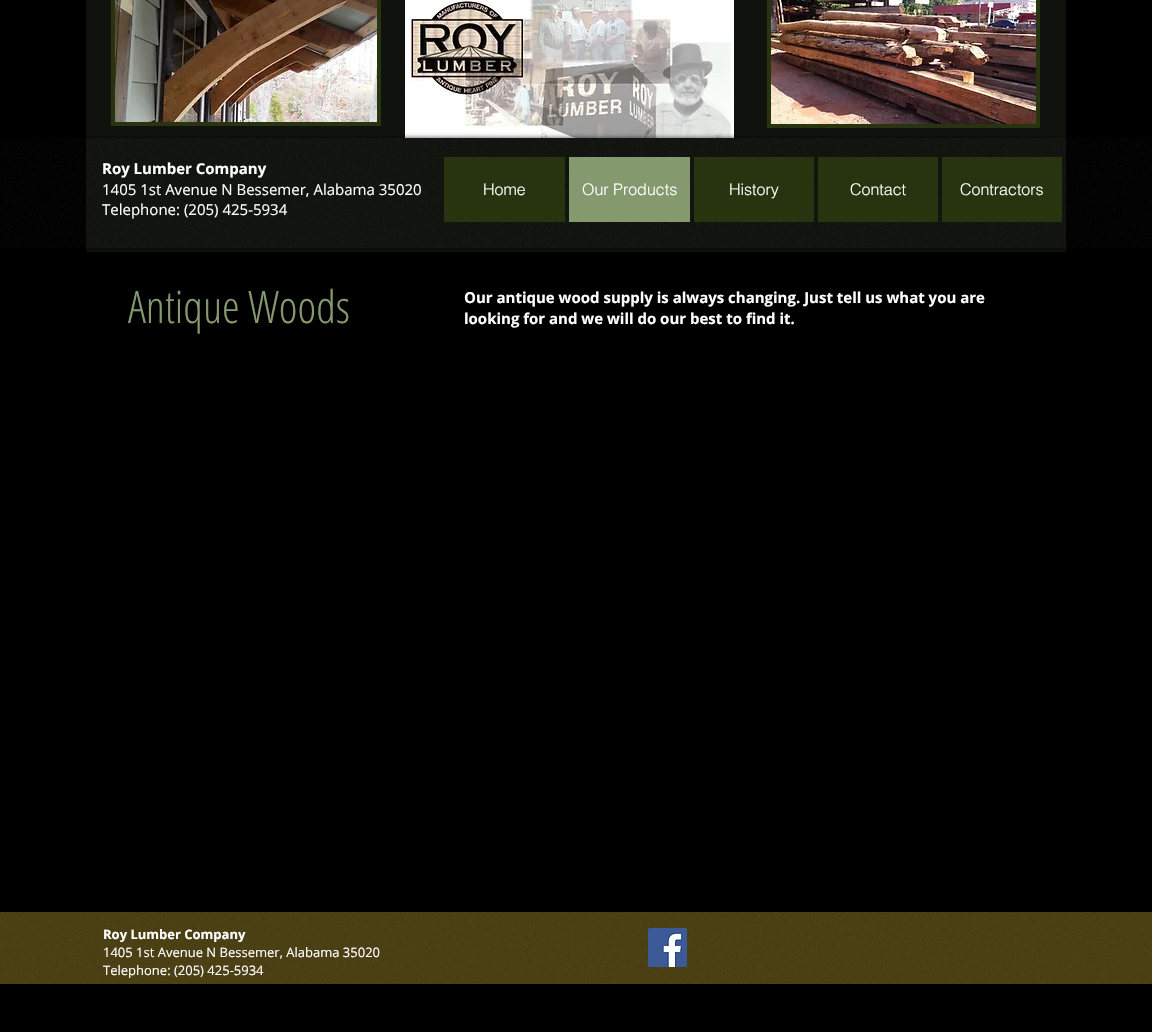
void draw(SkCanvas* canvas) {
	SkPaint paint;
	paint.setAntiAlias(true);
	auto svgPath = [&](const char* data, bool evenOdd = false) {
		SkPath result = *SkParsePath::FromSVGString(data);
		if (evenOdd) result.setFillType(SkPathFillType::kEvenOdd);
		return result;
	};
	canvas->clear(0xff000000);
	paint.setColor(0xff0f120d);
	canvas->drawRect(SkRect::MakeXYWH(86, 0, 980, 252), paint);
	paint.setColor(0xff28330f);
	canvas->drawRect(SkRect::MakeXYWH(111, 0, 270, 126), paint);
	canvas->drawImageRect(SkImages::DeferredFromEncodedData(SkData::MakeFromFileName("img1.png")), SkRect::MakeXYWH(115, 0, 262, 122), SkSamplingOptions());
	canvas->drawImageRect(SkImages::DeferredFromEncodedData(SkData::MakeFromFileName("img2.png")), SkRect::MakeXYWH(405, 0, 329, 138), SkSamplingOptions());
	canvas->drawRect(SkRect::MakeXYWH(767, 0, 273, 128), paint);
	canvas->drawImageRect(SkImages::DeferredFromEncodedData(SkData::MakeFromFileName("img3.png")), SkRect::MakeXYWH(771, 0, 265, 124), SkSamplingOptions());
	canvas->save();
	canvas->clipPath(svgPath("M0 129H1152V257H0ZM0 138H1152V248H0Z", true), true);
	paint.setColor(0xb3000000);
	paint.setMaskFilter(SkMaskFilter::MakeBlur(kNormal_SkBlurStyle, 2.5));
	canvas->drawRect(SkRect::MakeXYWH(0, 138, 1152, 110), paint);
	paint.setMaskFilter(nullptr);
	canvas->restore();
	canvas->drawImageRect(SkImages::DeferredFromEncodedData(SkData::MakeFromFileName("img4.png")), SkRect::MakeXYWH(0, 138, 1152, 110), SkSamplingOptions());
	SkFont f1(fontMgr->matchFamilyStyle("Open Sans", SkFontStyle::Bold()), 15);
	f1.setSubpixel(true);
	paint.setColor(0xffffffff);
	canvas->drawString("Roy Lumber Company", 102, 174, f1, paint);
	SkFont f2(fontMgr->matchFamilyStyle("Open Sans", SkFontStyle::Normal()), 15);
	f2.setSubpixel(true);
	canvas->drawString("1405 1st Avenue N Bessemer, Alabama 35020", 102, 195, f2, paint);
	canvas->drawString("Telephone: (205) 425-5934", 102, 215, f2, paint);
	paint.setColor(0xff28330f);
	canvas->drawRect(SkRect::MakeXYWH(444, 157, 121, 65), paint);
	SkFont f3(fontMgr->matchFamilyStyle("helvetica", SkFontStyle(300, SkFontStyle::kNormal_Width, SkFontStyle::kUpright_Slant)), 16);
	f3.setSubpixel(true);
	paint.setColor(0xffffffff);
	canvas->drawString("Home", 483, 195, f3, paint);
	paint.setColor(0xff85996e);
	canvas->drawRect(SkRect::MakeXYWH(569, 157, 121, 65), paint);
	paint.setColor(0xffffffff);
	canvas->drawString("Our Products", 582, 195, f3, paint);
	paint.setColor(0xff28330f);
	canvas->drawRect(SkRect::MakeXYWH(694, 157, 120, 65), paint);
	paint.setColor(0xffffffff);
	canvas->drawString("History", 729, 195, f3, paint);
	paint.setColor(0xff28330f);
	canvas->drawRect(SkRect::MakeXYWH(818, 157, 120, 65), paint);
	paint.setColor(0xffffffff);
	canvas->drawString("Contact", 850, 195, f3, paint);
	paint.setColor(0xff28330f);
	canvas->drawRect(SkRect::MakeXYWH(942, 157, 120, 65), paint);
	paint.setColor(0xffffffff);
	canvas->drawString("Contractors", 960, 195, f3, paint);
	SkFont f4(fontMgr->matchFamilyStyle("Open Sans Condensed", SkFontStyle(300, SkFontStyle::kNormal_Width, SkFontStyle::kUpright_Slant)), 45);
	f4.setSubpixel(true);
	paint.setColor(0xff85996e);
	canvas->drawString("Antique Woods", 128, 323, f4, paint);
	paint.setColor(0xffffffff);
	canvas->drawString("Our antique wood supply is always changing. Just tell us what you are", 464, 303, f1, paint);
	canvas->drawString("looking for and we will do our best to find it.", 464, 324, f1, paint);
	paint.setColor(0xff4b3f12);
	canvas->drawRect(SkRect::MakeXYWH(0, 912, 1152, 72), paint);
	canvas->drawImageRect(SkImages::DeferredFromEncodedData(SkData::MakeFromFileName("img5.png")), SkRect::MakeXYWH(0, 912, 1152, 72), SkSamplingOptions());
	SkFont f5(fontMgr->matchFamilyStyle("Open Sans", SkFontStyle::Bold()), 13);
	f5.setSubpixel(true);
	paint.setColor(0xffffffff);
	canvas->drawString("Roy Lumber Company", 103, 939, f5, paint);
	SkFont f6(fontMgr->matchFamilyStyle("Open Sans", SkFontStyle::Normal()), 13);
	f6.setSubpixel(true);
	canvas->drawString("1405 1st Avenue N Bessemer, Alabama 35020", 103, 957, f6, paint);
	canvas->drawString("Telephone: (205) 425-5934", 103, 975, f6, paint);
	canvas->drawImageRect(SkImages::DeferredFromEncodedData(SkData::MakeFromFileName("img6.png")), SkRect::MakeXYWH(648, 928, 39, 39), SkSamplingOptions());
}
